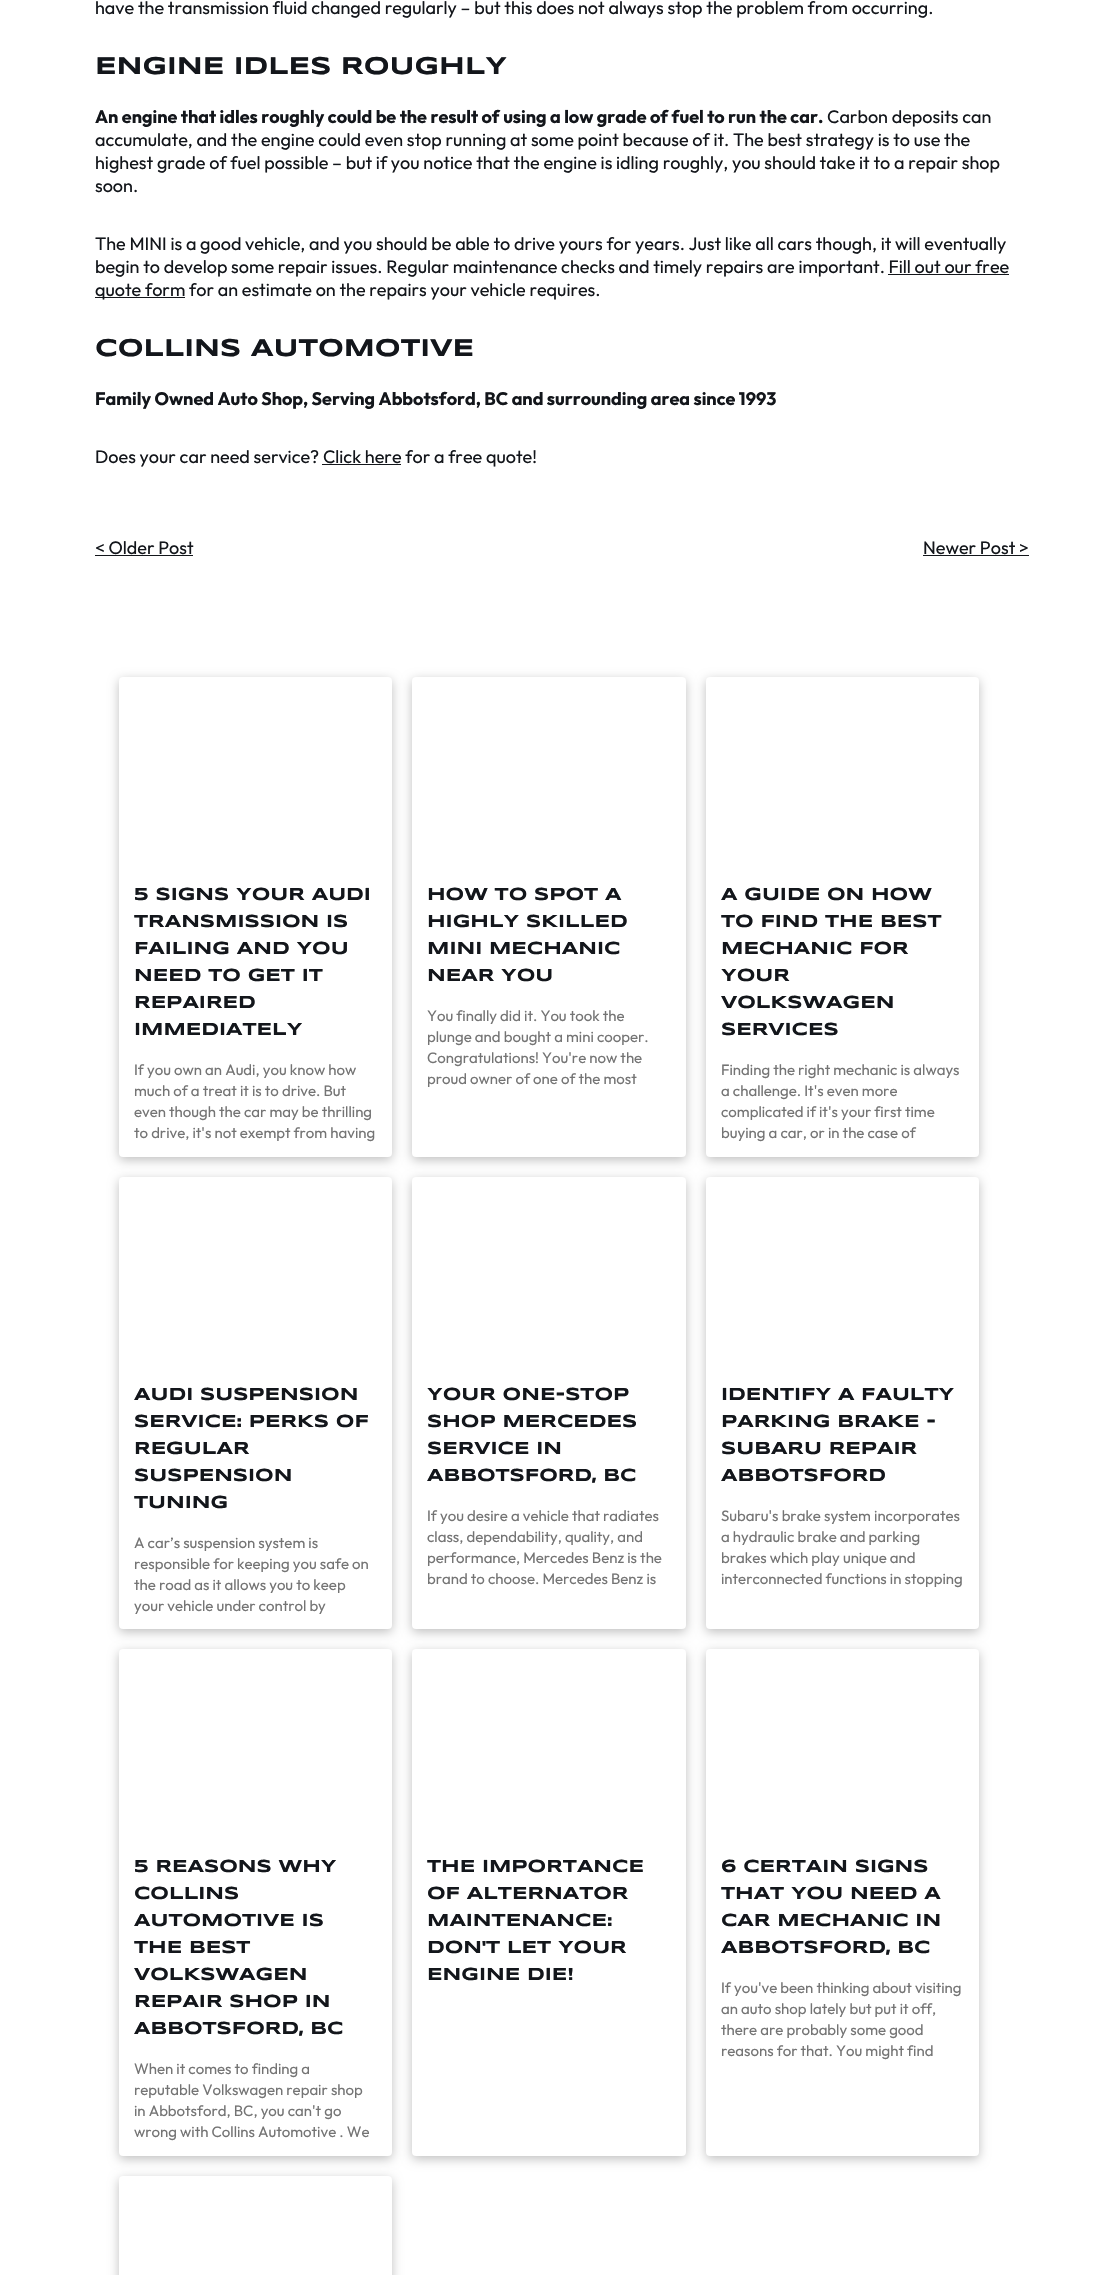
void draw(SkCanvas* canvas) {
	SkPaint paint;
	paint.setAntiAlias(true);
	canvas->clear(0xffffffff);
	SkFont f1(fontMgr->matchFamilyStyle("Outfit", SkFontStyle::Normal()), 18);
	f1.setSubpixel(true);
	paint.setColor(0xff13161b);
	canvas->drawString("have the transmission fluid changed regularly – but this does not always stop the problem from occurring.", 95, 14, f1, paint);
	SkFont f2(fontMgr->matchFamilyStyle("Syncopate", SkFontStyle::Bold()), 25);
	f2.setSubpixel(true);
	canvas->drawString("ENGINE IDLES ROUGHLY", 95, 74, f2, paint);
	SkFont f3(fontMgr->matchFamilyStyle("Outfit", SkFontStyle::Bold()), 18);
	f3.setSubpixel(true);
	canvas->drawString("An engine that idles roughly could be the result of using a low grade of fuel to run the car.", 95, 123, f3, paint);
	canvas->drawString("Carbon deposits can", 827, 123, f1, paint);
	canvas->drawString("accumulate, and the engine could even stop running at some point because of it. The best strategy is to use the", 95, 146, f1, paint);
	canvas->drawString("highest grade of fuel possible – but if you notice that the engine is idling roughly, you should take it to a repair shop", 95, 169, f1, paint);
	canvas->drawString("soon.", 95, 192, f1, paint);
	canvas->drawString("The MINI is a good vehicle, and you should be able to drive yours for years. Just like all cars though, it will eventually", 95, 250, f1, paint);
	canvas->drawString("begin to develop some repair issues. Regular maintenance checks and timely repairs are important. Fill out our free", 95, 273, f1, paint);
	canvas->drawRect(SkRect::MakeXYWH(95, 297, 90, 1), paint);
	canvas->drawString("quote form for an estimate on the repairs your vehicle requires.", 95, 296, f1, paint);
	canvas->drawRect(SkRect::MakeXYWH(888, 274, 121, 1), paint);
	canvas->drawString("COLLINS AUTOMOTIVE", 95, 356, f2, paint);
	canvas->drawString("Family Owned Auto Shop, Serving Abbotsford, BC and surrounding area since 1993", 95, 405, f3, paint);
	canvas->drawString("Does your car need service? Click here for a free quote!", 95, 463, f1, paint);
	canvas->drawRect(SkRect::MakeXYWH(322, 464, 79, 1), paint);
	canvas->drawString("< Older Post", 95, 554, f1, paint);
	canvas->drawRect(SkRect::MakeXYWH(95, 555, 98, 1), paint);
	canvas->drawString("Newer Post >", 923, 554, f1, paint);
	canvas->drawRect(SkRect::MakeXYWH(923, 555, 106, 1), paint);
	paint.setColor(0x40000000);
	paint.setMaskFilter(SkMaskFilter::MakeBlur(kNormal_SkBlurStyle, 5.5));
	canvas->drawRoundRect(SkRect::MakeXYWH(119, 680, 273, 480), 4, 4, paint);
	paint.setMaskFilter(nullptr);
	paint.setColor(0xffffffff);
	canvas->drawRoundRect(SkRect::MakeXYWH(119, 677, 273, 480), 4, 4, paint);
	SkFont f4(fontMgr->matchFamilyStyle("Syncopate", SkFontStyle::Bold()), 18);
	f4.setSubpixel(true);
	paint.setColor(0xff13161b);
	canvas->drawString("5 SIGNS YOUR AUDI", 134, 900, f4, paint);
	canvas->drawString("TRANSMISSION IS", 134, 927, f4, paint);
	canvas->drawString("FAILING AND YOU", 134, 954, f4, paint);
	canvas->drawString("NEED TO GET IT", 134, 981, f4, paint);
	canvas->drawString("REPAIRED", 134, 1008, f4, paint);
	canvas->drawString("IMMEDIATELY", 134, 1035, f4, paint);
	SkFont f5(fontMgr->matchFamilyStyle("Outfit", SkFontStyle::Normal()), 15);
	f5.setSubpixel(true);
	paint.setColor(0xff747474);
	canvas->drawString("If you own an Audi, you know how", 134, 1075, f5, paint);
	canvas->drawString("much of a treat it is to drive. But", 134, 1096, f5, paint);
	canvas->drawString("even though the car may be thrilling", 134, 1117, f5, paint);
	canvas->drawString("to drive, it's not exempt from having", 134, 1138, f5, paint);
	paint.setColor(0x40000000);
	paint.setMaskFilter(SkMaskFilter::MakeBlur(kNormal_SkBlurStyle, 5.5));
	canvas->drawRoundRect(SkRect::MakeXYWH(412, 680, 274, 480), 4, 4, paint);
	paint.setMaskFilter(nullptr);
	paint.setColor(0xffffffff);
	canvas->drawRoundRect(SkRect::MakeXYWH(412, 677, 274, 480), 4, 4, paint);
	paint.setColor(0xff13161b);
	canvas->drawString("HOW TO SPOT A", 427, 900, f4, paint);
	canvas->drawString("HIGHLY SKILLED", 427, 927, f4, paint);
	canvas->drawString("MINI MECHANIC", 427, 954, f4, paint);
	canvas->drawString("NEAR YOU", 427, 981, f4, paint);
	paint.setColor(0xff747474);
	canvas->drawString("You finally did it. You took the", 427, 1021, f5, paint);
	canvas->drawString("plunge and bought a mini cooper.", 427, 1042, f5, paint);
	canvas->drawString("Congratulations! You're now the", 427, 1063, f5, paint);
	canvas->drawString("proud owner of one of the most", 427, 1084, f5, paint);
	paint.setColor(0x40000000);
	paint.setMaskFilter(SkMaskFilter::MakeBlur(kNormal_SkBlurStyle, 5.5));
	canvas->drawRoundRect(SkRect::MakeXYWH(706, 680, 273, 480), 4, 4, paint);
	paint.setMaskFilter(nullptr);
	paint.setColor(0xffffffff);
	canvas->drawRoundRect(SkRect::MakeXYWH(706, 677, 273, 480), 4, 4, paint);
	paint.setColor(0xff13161b);
	canvas->drawString("A GUIDE ON HOW", 721, 900, f4, paint);
	canvas->drawString("TO FIND THE BEST", 721, 927, f4, paint);
	canvas->drawString("MECHANIC FOR", 721, 954, f4, paint);
	canvas->drawString("YOUR", 721, 981, f4, paint);
	canvas->drawString("VOLKSWAGEN", 721, 1008, f4, paint);
	canvas->drawString("SERVICES", 721, 1035, f4, paint);
	paint.setColor(0xff747474);
	canvas->drawString("Finding the right mechanic is always", 721, 1075, f5, paint);
	canvas->drawString("a challenge. It's even more", 721, 1096, f5, paint);
	canvas->drawString("complicated if it's your first time", 721, 1117, f5, paint);
	canvas->drawString("buying a car, or in the case of", 721, 1138, f5, paint);
	paint.setColor(0x40000000);
	paint.setMaskFilter(SkMaskFilter::MakeBlur(kNormal_SkBlurStyle, 5.5));
	canvas->drawRoundRect(SkRect::MakeXYWH(119, 1180, 273, 452), 4, 4, paint);
	paint.setMaskFilter(nullptr);
	paint.setColor(0xffffffff);
	canvas->drawRoundRect(SkRect::MakeXYWH(119, 1177, 273, 452), 4, 4, paint);
	paint.setColor(0xff13161b);
	canvas->drawString("AUDI SUSPENSION", 134, 1400, f4, paint);
	canvas->drawString("SERVICE: PERKS OF", 134, 1427, f4, paint);
	canvas->drawString("REGULAR", 134, 1454, f4, paint);
	canvas->drawString("SUSPENSION", 134, 1481, f4, paint);
	canvas->drawString("TUNING", 134, 1508, f4, paint);
	paint.setColor(0xff747474);
	canvas->drawString("A car’s suspension system is", 134, 1548, f5, paint);
	canvas->drawString("responsible for keeping you safe on", 134, 1569, f5, paint);
	canvas->drawString("the road as it allows you to keep", 134, 1590, f5, paint);
	canvas->drawString("your vehicle under control by", 134, 1611, f5, paint);
	paint.setColor(0x40000000);
	paint.setMaskFilter(SkMaskFilter::MakeBlur(kNormal_SkBlurStyle, 5.5));
	canvas->drawRoundRect(SkRect::MakeXYWH(412, 1180, 274, 452), 4, 4, paint);
	paint.setMaskFilter(nullptr);
	paint.setColor(0xffffffff);
	canvas->drawRoundRect(SkRect::MakeXYWH(412, 1177, 274, 452), 4, 4, paint);
	paint.setColor(0xff13161b);
	canvas->drawString("YOUR ONE-STOP", 427, 1400, f4, paint);
	canvas->drawString("SHOP MERCEDES", 427, 1427, f4, paint);
	canvas->drawString("SERVICE IN", 427, 1454, f4, paint);
	canvas->drawString("ABBOTSFORD, BC", 427, 1481, f4, paint);
	paint.setColor(0xff747474);
	canvas->drawString("If you desire a vehicle that radiates", 427, 1521, f5, paint);
	canvas->drawString("class, dependability, quality, and", 427, 1542, f5, paint);
	canvas->drawString("performance, Mercedes Benz is the", 427, 1563, f5, paint);
	canvas->drawString("brand to choose. Mercedes Benz is", 427, 1584, f5, paint);
	paint.setColor(0x40000000);
	paint.setMaskFilter(SkMaskFilter::MakeBlur(kNormal_SkBlurStyle, 5.5));
	canvas->drawRoundRect(SkRect::MakeXYWH(706, 1180, 273, 452), 4, 4, paint);
	paint.setMaskFilter(nullptr);
	paint.setColor(0xffffffff);
	canvas->drawRoundRect(SkRect::MakeXYWH(706, 1177, 273, 452), 4, 4, paint);
	paint.setColor(0xff13161b);
	canvas->drawString("IDENTIFY A FAULTY", 721, 1400, f4, paint);
	canvas->drawString("PARKING BRAKE -", 721, 1427, f4, paint);
	canvas->drawString("SUBARU REPAIR", 721, 1454, f4, paint);
	canvas->drawString("ABBOTSFORD", 721, 1481, f4, paint);
	paint.setColor(0xff747474);
	canvas->drawString("Subaru's brake system incorporates", 721, 1521, f5, paint);
	canvas->drawString("a hydraulic brake and parking", 721, 1542, f5, paint);
	canvas->drawString("brakes which play unique and", 721, 1563, f5, paint);
	canvas->drawString("interconnected functions in stopping", 721, 1584, f5, paint);
	paint.setColor(0x40000000);
	paint.setMaskFilter(SkMaskFilter::MakeBlur(kNormal_SkBlurStyle, 5.5));
	canvas->drawRoundRect(SkRect::MakeXYWH(119, 1652, 273, 507), 4, 4, paint);
	paint.setMaskFilter(nullptr);
	paint.setColor(0xffffffff);
	canvas->drawRoundRect(SkRect::MakeXYWH(119, 1649, 273, 507), 4, 4, paint);
	paint.setColor(0xff13161b);
	canvas->drawString("5 REASONS WHY", 134, 1872, f4, paint);
	canvas->drawString("COLLINS", 134, 1899, f4, paint);
	canvas->drawString("AUTOMOTIVE IS", 134, 1926, f4, paint);
	canvas->drawString("THE BEST", 134, 1953, f4, paint);
	canvas->drawString("VOLKSWAGEN", 134, 1980, f4, paint);
	canvas->drawString("REPAIR SHOP IN", 134, 2007, f4, paint);
	canvas->drawString("ABBOTSFORD, BC", 134, 2034, f4, paint);
	paint.setColor(0xff747474);
	canvas->drawString("When it comes to finding a", 134, 2074, f5, paint);
	canvas->drawString("reputable Volkswagen repair shop", 134, 2095, f5, paint);
	canvas->drawString("in Abbotsford, BC, you can't go", 134, 2116, f5, paint);
	canvas->drawString("wrong with Collins Automotive . We", 134, 2137, f5, paint);
	paint.setColor(0x40000000);
	paint.setMaskFilter(SkMaskFilter::MakeBlur(kNormal_SkBlurStyle, 5.5));
	canvas->drawRoundRect(SkRect::MakeXYWH(412, 1652, 274, 507), 4, 4, paint);
	paint.setMaskFilter(nullptr);
	paint.setColor(0xffffffff);
	canvas->drawRoundRect(SkRect::MakeXYWH(412, 1649, 274, 507), 4, 4, paint);
	paint.setColor(0xff13161b);
	canvas->drawString("THE IMPORTANCE", 427, 1872, f4, paint);
	canvas->drawString("OF ALTERNATOR", 427, 1899, f4, paint);
	canvas->drawString("MAINTENANCE:", 427, 1926, f4, paint);
	canvas->drawString("DON'T LET YOUR", 427, 1953, f4, paint);
	canvas->drawString("ENGINE DIE!", 427, 1980, f4, paint);
	paint.setColor(0x40000000);
	paint.setMaskFilter(SkMaskFilter::MakeBlur(kNormal_SkBlurStyle, 5.5));
	canvas->drawRoundRect(SkRect::MakeXYWH(706, 1652, 273, 507), 4, 4, paint);
	paint.setMaskFilter(nullptr);
	paint.setColor(0xffffffff);
	canvas->drawRoundRect(SkRect::MakeXYWH(706, 1649, 273, 507), 4, 4, paint);
	paint.setColor(0xff13161b);
	canvas->drawString("6 CERTAIN SIGNS", 721, 1872, f4, paint);
	canvas->drawString("THAT YOU NEED A", 721, 1899, f4, paint);
	canvas->drawString("CAR MECHANIC IN", 721, 1926, f4, paint);
	canvas->drawString("ABBOTSFORD, BC", 721, 1953, f4, paint);
	paint.setColor(0xff747474);
	canvas->drawString("If you've been thinking about visiting", 721, 1993, f5, paint);
	canvas->drawString("an auto shop lately but put it off,", 721, 2014, f5, paint);
	canvas->drawString("there are probably some good", 721, 2035, f5, paint);
	canvas->drawString("reasons for that. You might find", 721, 2056, f5, paint);
	paint.setColor(0x40000000);
	paint.setMaskFilter(SkMaskFilter::MakeBlur(kNormal_SkBlurStyle, 5.5));
	canvas->drawRoundRect(SkRect::MakeXYWH(119, 2179, 273, 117), 4, 4, paint);
	paint.setMaskFilter(nullptr);
	paint.setColor(0xffffffff);
	canvas->drawRoundRect(SkRect::MakeXYWH(119, 2176, 273, 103), 4, 4, paint);
}
